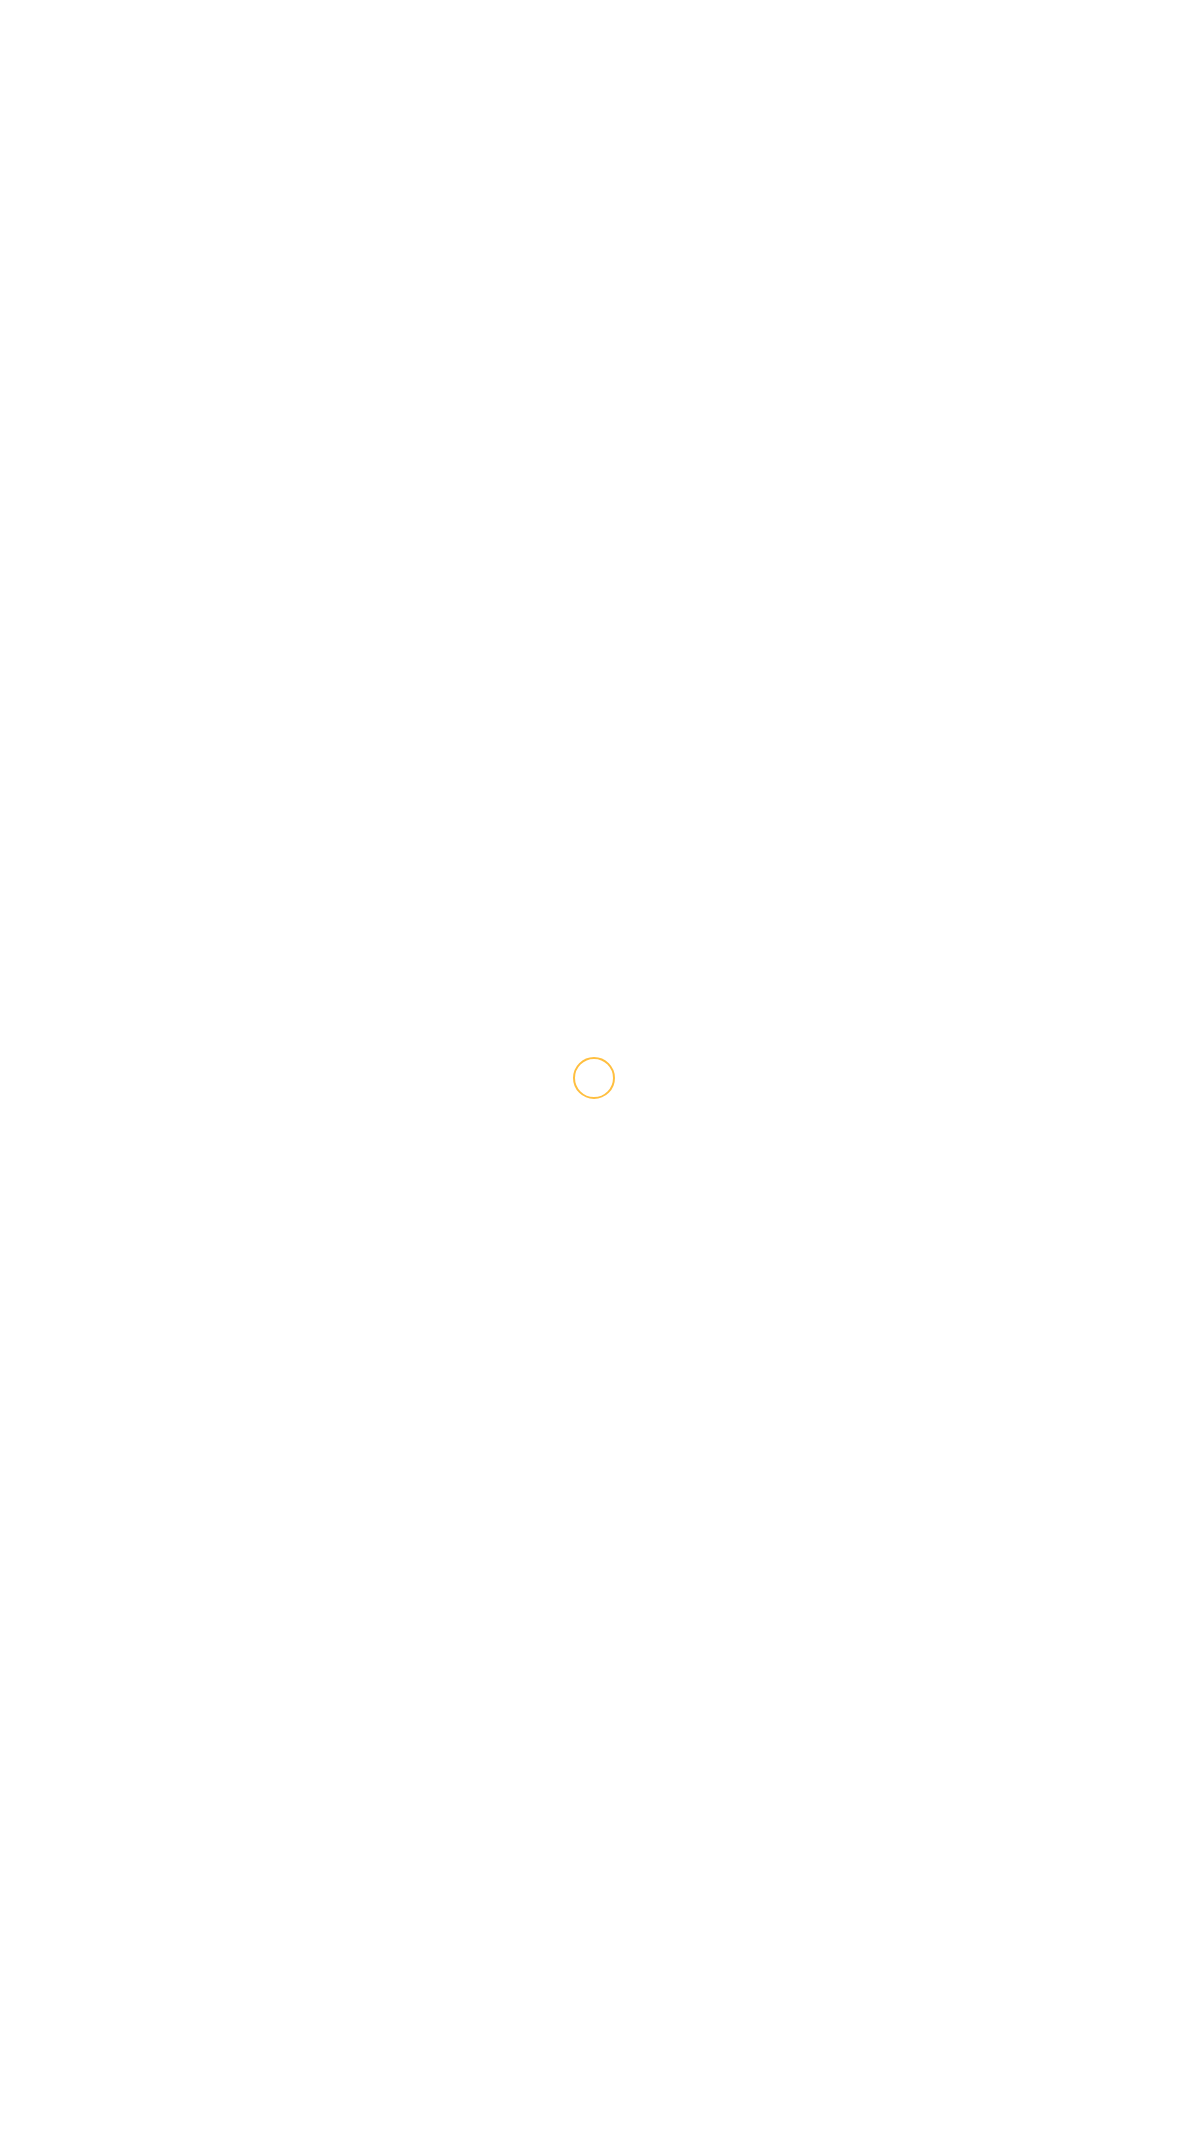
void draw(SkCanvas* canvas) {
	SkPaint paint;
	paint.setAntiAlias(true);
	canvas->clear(0xffffffff);
	paint.setStroke(true);
	paint.setStrokeWidth(2);
	paint.setColor(0xffffbf3f);
	canvas->drawCircle(594, 1078, 20, paint);
}
